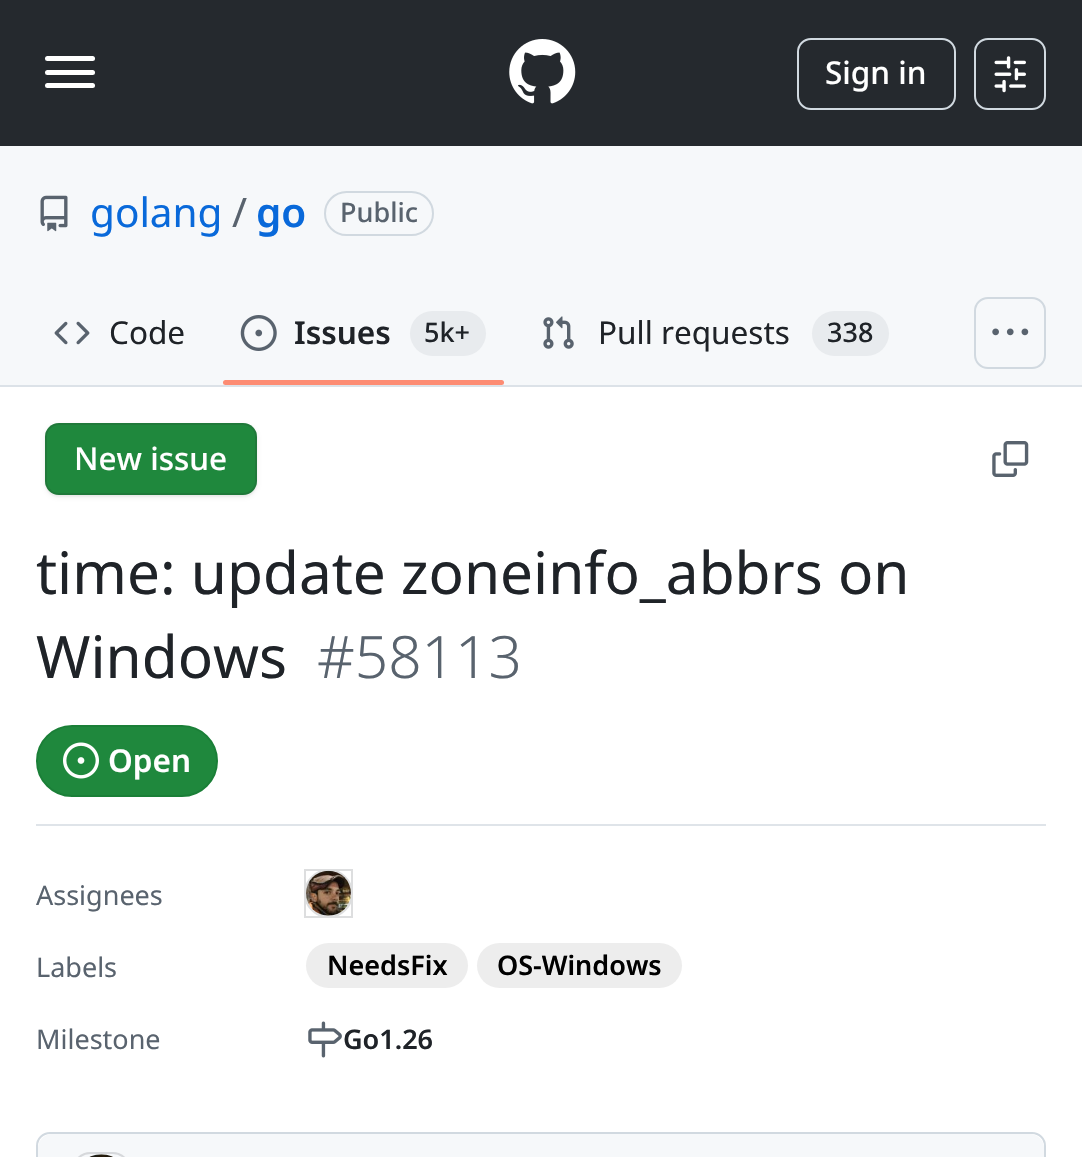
void draw(SkCanvas* canvas) {
	SkPaint paint;
	paint.setAntiAlias(true);
	auto svgPath = [&](const char* data, bool evenOdd = false) {
		SkPath result = *SkParsePath::FromSVGString(data);
		if (evenOdd) result.setFillType(SkPathFillType::kEvenOdd);
		return result;
	};
	canvas->clear(0xffffffff);
	paint.setColor(0xff25292e);
	canvas->drawRect(SkRect::MakeXYWH(0, 0, 1082, 146), paint);
	paint.setColor(0xffffffff);
	canvas->drawRoundRect(SkRect::MakeXYWH(45, 56, 50, 5), 2.5, 2.5, paint);
	canvas->drawRoundRect(SkRect::MakeXYWH(45, 70, 50, 5), 2.5, 2.5, paint);
	canvas->drawRoundRect(SkRect::MakeXYWH(45, 83, 50, 5), 2.5, 2.5, paint);
	canvas->drawImageRect(SkImages::DeferredFromEncodedData(SkData::MakeFromFileName("img1.png")), SkRect::MakeXYWH(509, 39, 67, 65), SkSamplingOptions());
	paint.setStroke(true);
	paint.setStrokeWidth(2);
	paint.setColor(0xffd1d9e0);
	canvas->drawRoundRect(SkRect::MakeXYWH(798, 39, 157, 70), 13, 13, paint);
	SkFont f1(fontMgr->matchFamilyStyle("Noto Sans", SkFontStyle(500, SkFontStyle::kNormal_Width, SkFontStyle::kUpright_Slant)), 31.5);
	f1.setSubpixel(true);
	paint.setStroke(false);
	paint.setColor(0xffffffff);
	canvas->drawString("Sign in", 825, 84, f1, paint);
	paint.setStroke(true);
	paint.setColor(0xffd1d9e0);
	canvas->drawRoundRect(SkRect::MakeXYWH(975, 39, 70, 70), 13, 13, paint);
	canvas->drawImageRect(SkImages::DeferredFromEncodedData(SkData::MakeFromFileName("img2.png")), SkRect::MakeXYWH(994, 56, 32, 37), SkSamplingOptions());
	paint.setStroke(false);
	paint.setColor(0xfff6f8fa);
	canvas->drawRect(SkRect::MakeXYWH(0, 146, 1082, 239), paint);
	canvas->drawImageRect(SkImages::DeferredFromEncodedData(SkData::MakeFromFileName("img3.png")), SkRect::MakeXYWH(40, 195, 28, 37), SkSamplingOptions());
	SkFont f2(fontMgr->matchFamilyStyle("Noto Sans", SkFontStyle::Normal()), 40.5);
	f2.setSubpixel(true);
	paint.setColor(0xff0969da);
	canvas->drawString("golang", 90, 227, f2, paint);
	paint.setColor(0xff59636e);
	canvas->drawString("/", 232, 227, f2, paint);
	SkFont f3(fontMgr->matchFamilyStyle("Noto Sans", SkFontStyle(600, SkFontStyle::kNormal_Width, SkFontStyle::kUpright_Slant)), 40.5);
	f3.setSubpixel(true);
	paint.setColor(0xff0969da);
	canvas->drawString("go", 256, 227, f3, paint);
	paint.setStroke(true);
	paint.setColor(0xffd1d9e0);
	canvas->drawRoundRect(SkRect::MakeXYWH(325, 192, 108, 43), 21.5, 21.5, paint);
	SkFont f4(fontMgr->matchFamilyStyle("Noto Sans", SkFontStyle(500, SkFontStyle::kNormal_Width, SkFontStyle::kUpright_Slant)), 27);
	f4.setSubpixel(true);
	paint.setStroke(false);
	paint.setColor(0xff59636e);
	canvas->drawString("Public", 340, 222, f4, paint);
	paint.setColor(0xffdce2e8);
	canvas->drawRect(SkRect::MakeXYWH(0, 385, 1082, 2), paint);
	canvas->drawImageRect(SkImages::DeferredFromEncodedData(SkData::MakeFromFileName("img4.png")), SkRect::MakeXYWH(54, 321, 36, 24), SkSamplingOptions());
	SkFont f5(fontMgr->matchFamilyStyle("Noto Sans", SkFontStyle::Normal()), 31.5);
	f5.setSubpixel(true);
	paint.setColor(0xff1f2328);
	canvas->drawString("Code", 109, 344, f5, paint);
	canvas->drawImageRect(SkImages::DeferredFromEncodedData(SkData::MakeFromFileName("img5.png")), SkRect::MakeXYWH(240, 315, 37, 36), SkSamplingOptions());
	SkFont f6(fontMgr->matchFamilyStyle("Noto Sans", SkFontStyle(600, SkFontStyle::kNormal_Width, SkFontStyle::kUpright_Slant)), 31.5);
	f6.setSubpixel(true);
	canvas->drawString("Issues", 294, 344, f6, paint);
	paint.setColor(0xffe8ebee);
	canvas->drawRoundRect(SkRect::MakeXYWH(410, 311, 76, 45), 22.5, 22.5, paint);
	paint.setColor(0xff1f2328);
	canvas->drawString("5k+", 424, 342, f4, paint);
	paint.setColor(0xfffd8c73);
	canvas->drawRoundRect(SkRect::MakeXYWH(223, 380, 281, 5), 2.5, 2.5, paint);
	canvas->drawImageRect(SkImages::DeferredFromEncodedData(SkData::MakeFromFileName("img6.png")), SkRect::MakeXYWH(543, 316, 31, 33), SkSamplingOptions());
	paint.setColor(0xff1f2328);
	canvas->drawString("Pull requests", 598, 344, f5, paint);
	paint.setColor(0xffe8ebee);
	canvas->drawRoundRect(SkRect::MakeXYWH(812, 311, 77, 45), 22.5, 22.5, paint);
	paint.setColor(0xff1f2328);
	canvas->drawString("338", 827, 342, f4, paint);
	paint.setStroke(true);
	paint.setColor(0xffd1d9e0);
	canvas->drawRoundRect(SkRect::MakeXYWH(975, 298, 70, 70), 13, 13, paint);
	canvas->drawImageRect(SkImages::DeferredFromEncodedData(SkData::MakeFromFileName("img7.png")), SkRect::MakeXYWH(992, 328, 37, 8), SkSamplingOptions());
	paint.setStroke(false);
	paint.setColor(0x0f1f2328);
	paint.setMaskFilter(SkMaskFilter::MakeBlur(kNormal_SkBlurStyle, 3.5));
	canvas->drawRoundRect(SkRect::MakeXYWH(45, 425, 212, 72), 14, 14, paint);
	paint.setMaskFilter(nullptr);
	paint.setMaskFilter(SkMaskFilter::MakeBlur(kNormal_SkBlurStyle, 1));
	canvas->drawRoundRect(SkRect::MakeXYWH(45, 425, 212, 72), 14, 14, paint);
	paint.setMaskFilter(nullptr);
	paint.setColor(0xff1f883d);
	canvas->drawRoundRect(SkRect::MakeXYWH(45, 423, 212, 72), 14, 14, paint);
	paint.setStroke(true);
	paint.setColor(0x261f2328);
	canvas->drawRoundRect(SkRect::MakeXYWH(46, 424, 210, 70), 13, 13, paint);
	paint.setStroke(false);
	paint.setColor(0xffffffff);
	canvas->drawString("New issue", 74, 470, f1, paint);
	canvas->drawImageRect(SkImages::DeferredFromEncodedData(SkData::MakeFromFileName("img8.png")), SkRect::MakeXYWH(992, 441, 37, 36), SkSamplingOptions());
	SkFont f7(fontMgr->matchFamilyStyle("Noto Sans", SkFontStyle::Normal()), 58.5);
	f7.setSubpixel(true);
	paint.setColor(0xff1f2328);
	canvas->drawString("time: update zoneinfo_abbrs on", 36, 594, f7, paint);
	canvas->drawString("Windows", 36, 678, f7, paint);
	SkFont f8(fontMgr->matchFamilyStyle("Noto Sans", SkFontStyle(300, SkFontStyle::kNormal_Width, SkFontStyle::kUpright_Slant)), 58.5);
	f8.setSubpixel(true);
	paint.setColor(0xff59636e);
	canvas->drawString("#58113", 317, 678, f8, paint);
	paint.setColor(0xffdfe4e9);
	canvas->drawRect(SkRect::MakeXYWH(36, 824, 1010, 2), paint);
	paint.setColor(0xff1f883d);
	canvas->drawRoundRect(SkRect::MakeXYWH(37, 726, 180, 70), 35, 35, paint);
	paint.setStroke(true);
	paint.setColor(0xff1a7f37);
	canvas->drawRoundRect(SkRect::MakeXYWH(37, 726, 180, 70), 35, 35, paint);
	canvas->drawImageRect(SkImages::DeferredFromEncodedData(SkData::MakeFromFileName("img9.png")), SkRect::MakeXYWH(63, 742, 36, 37), SkSamplingOptions());
	paint.setStroke(false);
	paint.setColor(0xffffffff);
	canvas->drawString("Open", 108, 772, f6, paint);
	SkFont f9(fontMgr->matchFamilyStyle("Noto Sans", SkFontStyle::Normal()), 27);
	f9.setSubpixel(true);
	paint.setColor(0xff59636e);
	canvas->drawString("Assignees", 36, 905, f9, paint);
	paint.setStroke(true);
	paint.setColor(0xffdddedf);
	canvas->drawRect(SkRect::MakeXYWH(305, 870, 47, 47), paint);
	canvas->save();
	canvas->clipRect(SkRect::MakeXYWH(306, 871, 45, 45));
	canvas->drawCircle(328.5, 893.5, 23.5, paint);
	canvas->restore();
	canvas->drawImageRect(SkImages::DeferredFromEncodedData(SkData::MakeFromFileName("img10.png")), SkRect::MakeXYWH(306, 870, 45, 46), SkSamplingOptions());
	paint.setStroke(false);
	paint.setColor(0xff59636e);
	canvas->drawString("Labels", 36, 977, f9, paint);
	paint.setColor(0xffededed);
	canvas->drawRoundRect(SkRect::MakeXYWH(306, 943, 162, 45), 22.5, 22.5, paint);
	SkFont f10(fontMgr->matchFamilyStyle("Noto Sans", SkFontStyle(600, SkFontStyle::kNormal_Width, SkFontStyle::kUpright_Slant)), 27);
	f10.setSubpixel(true);
	paint.setColor(0xff000000);
	canvas->drawString("NeedsFix", 327, 975, f10, paint);
	paint.setColor(0xffededed);
	canvas->drawRoundRect(SkRect::MakeXYWH(477, 943, 205, 45), 22.5, 22.5, paint);
	paint.setColor(0xff000000);
	canvas->drawString("OS-Windows", 497, 975, f10, paint);
	paint.setColor(0xff59636e);
	canvas->drawString("Milestone", 36, 1049, f9, paint);
	canvas->drawImageRect(SkImages::DeferredFromEncodedData(SkData::MakeFromFileName("img11.png")), SkRect::MakeXYWH(308, 1021, 34, 37), SkSamplingOptions());
	paint.setColor(0xff1f2328);
	canvas->drawString("Go1.26", 343, 1049, f10, paint);
	paint.setStroke(true);
	paint.setColor(0xffd1d9e0);
	canvas->drawRoundRect(SkRect::MakeXYWH(37, 1133, 1008, 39), 13, 13, paint);
	paint.setStroke(false);
	paint.setColor(0xfff6f8fa);
	canvas->drawPath(svgPath("M52 1134H1030C1037.5 1134 1044 1140.5 1044 1148V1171H38V1148C38 1140.5 44.5 1134 52 1134Z"), paint);
	paint.setStroke(true);
	paint.setColor(0xffd6d8db);
	canvas->drawRoundRect(SkRect::MakeXYWH(73, 1153, 57, 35), 28.5, 28.5, paint);
	canvas->drawImageRect(SkImages::DeferredFromEncodedData(SkData::MakeFromFileName("img12.png")), SkRect::MakeXYWH(89, 1154, 24, 3), SkSamplingOptions());
}
